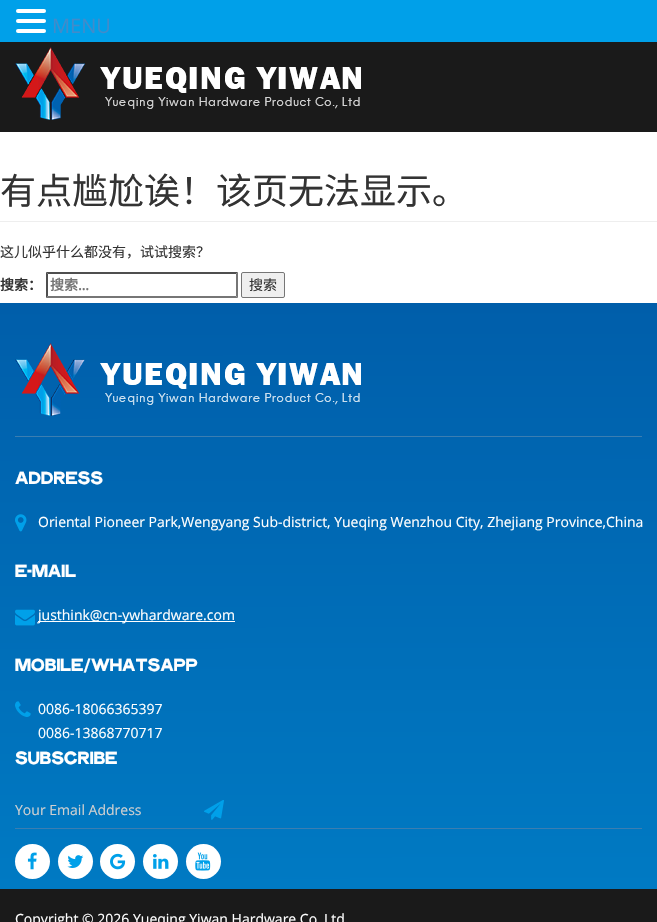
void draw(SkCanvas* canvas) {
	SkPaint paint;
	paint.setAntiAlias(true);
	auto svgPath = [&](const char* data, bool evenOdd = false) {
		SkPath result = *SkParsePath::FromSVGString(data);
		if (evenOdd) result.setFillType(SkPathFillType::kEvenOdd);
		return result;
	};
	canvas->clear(0xffffffff);
	paint.setColor(0xff00a0e9);
	canvas->drawRect(SkRect::MakeXYWH(0, 0, 657, 42), paint);
	paint.setColor(0xffffffff);
	canvas->drawRoundRect(SkRect::MakeXYWH(16, 9, 30, 4), 2, 2, paint);
	canvas->drawRoundRect(SkRect::MakeXYWH(16, 19, 30, 4), 2, 2, paint);
	canvas->drawRoundRect(SkRect::MakeXYWH(16, 29, 30, 4), 2, 2, paint);
	SkFont f1(fontMgr->matchFamilyStyle("Open Sans", SkFontStyle::Normal()), 20);
	f1.setSubpixel(true);
	paint.setColor(0xff428bca);
	canvas->drawString("MENU", 52, 33, f1, paint);
	paint.setColor(0xff1a1a1a);
	canvas->drawRect(SkRect::MakeXYWH(0, 42, 657, 90), paint);
	canvas->drawImageRect(SkImages::DeferredFromEncodedData(SkData::MakeFromFileName("img1.png")), SkRect::MakeXYWH(15, 47, 346, 73), SkSamplingOptions());
	paint.setColor(0xffeeeeee);
	canvas->drawRect(SkRect::MakeXYWH(0, 221, 657, 1), paint);
	SkFont f2(fontMgr->matchFamilyStyle("Noto Sans CJK SC", SkFontStyle::Normal()), 36);
	f2.setSubpixel(true);
	paint.setColor(0xff333333);
	canvas->drawString("有点尴尬诶！该页无法显示。", 0, 204, f2, paint);
	SkFont f3(fontMgr->matchFamilyStyle("Noto Sans CJK SC", SkFontStyle::Normal()), 14);
	f3.setSubpixel(true);
	canvas->drawString("这儿似乎什么都没有，试试搜索？", 0, 257, f3, paint);
	SkFont f4(fontMgr->matchFamilyStyle("Noto Sans CJK SC", SkFontStyle::Bold()), 14);
	f4.setSubpixel(true);
	canvas->drawString("搜索：", 0, 290, f4, paint);
	paint.setColor(0xff4f4f4f);
	canvas->drawPath(svgPath("M46 272H238L236 274H48Z"), paint);
	paint.setColor(0xff767676);
	canvas->drawPath(svgPath("M238 272V298L236 296V274Z"), paint);
	canvas->drawPath(svgPath("M238 298H46L48 296H236Z"), paint);
	paint.setColor(0xff4f4f4f);
	canvas->drawPath(svgPath("M46 298V272L48 274V296Z"), paint);
	paint.setColor(0xff757575);
	canvas->drawString("搜索", 50, 290, f4, paint);
	SkFont f5(fontMgr->matchFamilyStyle("Open Sans", SkFontStyle::Bold()), 14);
	f5.setSubpixel(true);
	canvas->drawString("…", 78, 290, f5, paint);
	paint.setColor(0xffefefef);
	canvas->drawRoundRect(SkRect::MakeXYWH(241.5, 272.5, 43, 25), 1.5, 1.5, paint);
	paint.setStroke(true);
	paint.setStrokeWidth(1);
	paint.setColor(0xff767676);
	canvas->drawRoundRect(SkRect::MakeXYWH(241.5, 272.5, 43, 25), 1.5, 1.5, paint);
	paint.setStroke(false);
	paint.setColor(0xff333333);
	canvas->drawString("搜索", 249, 290, f3, paint);
	{
		const SkColor colors[] = {0xff005eaa, 0xff007ac3};
		const float stops[] = {0, 1};
		const SkPoint ends[] = {{328, 303}, {329, 889}};
		paint.setShader(SkGradientShader::MakeLinear(ends, colors, stops, 2, SkTileMode::kClamp));
		paint.setAlpha(255);
	}
	canvas->drawRect(SkRect::MakeXYWH(0, 303, 657, 586), paint);
	paint.setShader(nullptr);
	paint.setColor(0xff3b7eb1);
	canvas->drawRect(SkRect::MakeXYWH(15, 436, 627, 1), paint);
	canvas->drawImageRect(SkImages::DeferredFromEncodedData(SkData::MakeFromFileName("img2.png")), SkRect::MakeXYWH(15, 343, 346, 73), SkSamplingOptions());
	SkFont f6(fontMgr->matchFamilyStyle("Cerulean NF", SkFontStyle::Normal()), 16);
	f6.setSubpixel(true);
	paint.setColor(0xffffffff);
	canvas->drawString("ADDRESS", 15, 484, f6, paint);
	canvas->drawImageRect(SkImages::DeferredFromEncodedData(SkData::MakeFromFileName("img3.png")), SkRect::MakeXYWH(15, 514, 12, 18), SkSamplingOptions());
	SkFont f7(fontMgr->matchFamilyStyle("Open Sans", SkFontStyle::Normal()), 14);
	f7.setSubpixel(true);
	canvas->drawString("Oriental Pioneer Park,Wengyang Sub-district, Yueqing Wenzhou City, Zhejiang Province,China", 38, 527, f7, paint);
	canvas->drawString("E-MAIL", 15, 577, f6, paint);
	canvas->drawImageRect(SkImages::DeferredFromEncodedData(SkData::MakeFromFileName("img4.png")), SkRect::MakeXYWH(15, 609, 20, 17), SkSamplingOptions());
	canvas->drawRect(SkRect::MakeXYWH(38, 621, 197, 1), paint);
	canvas->drawString("justhink@cn-ywhardware.com", 38, 620, f7, paint);
	canvas->drawString("MOBILE/WHATSAPP", 15, 671, f6, paint);
	canvas->drawImageRect(SkImages::DeferredFromEncodedData(SkData::MakeFromFileName("img5.png")), SkRect::MakeXYWH(15, 701, 16, 16), SkSamplingOptions());
	canvas->drawString("0086-18066365397", 38, 714, f7, paint);
	canvas->drawString("0086-13868770717", 38, 738, f7, paint);
	canvas->drawString("SUBSCRIBE", 15, 764, f6, paint);
	paint.setColor(0xff3b7eb1);
	canvas->drawRect(SkRect::MakeXYWH(15, 828, 627, 1), paint);
	paint.setColor(0xffd0d0d0);
	canvas->drawString("Your Email Address", 15, 815, f7, paint);
	canvas->drawImageRect(SkImages::DeferredFromEncodedData(SkData::MakeFromFileName("img6.png")), SkRect::MakeXYWH(204, 800, 20, 20), SkSamplingOptions());
	paint.setColor(0xffffffff);
	canvas->drawCircle(32.5, 861.5, 17.5, paint);
	canvas->drawImageRect(SkImages::DeferredFromEncodedData(SkData::MakeFromFileName("img7.png")), SkRect::MakeXYWH(27, 852, 10, 18), SkSamplingOptions());
	canvas->drawCircle(75.5, 861.5, 17.5, paint);
	canvas->drawImageRect(SkImages::DeferredFromEncodedData(SkData::MakeFromFileName("img8.png")), SkRect::MakeXYWH(67, 855, 17, 13), SkSamplingOptions());
	canvas->drawCircle(117.5, 861.5, 17.5, paint);
	canvas->drawImageRect(SkImages::DeferredFromEncodedData(SkData::MakeFromFileName("img9.png")), SkRect::MakeXYWH(110, 853, 16, 17), SkSamplingOptions());
	canvas->drawCircle(160.5, 861.5, 17.5, paint);
	canvas->drawImageRect(SkImages::DeferredFromEncodedData(SkData::MakeFromFileName("img10.png")), SkRect::MakeXYWH(153, 854, 16, 15), SkSamplingOptions());
	canvas->drawCircle(203.5, 861.5, 17.5, paint);
	canvas->drawImageRect(SkImages::DeferredFromEncodedData(SkData::MakeFromFileName("img11.png")), SkRect::MakeXYWH(195, 852, 16, 19), SkSamplingOptions());
	paint.setColor(0xff1a1a1a);
	canvas->drawRect(SkRect::MakeXYWH(0, 889, 657, 33), paint);
	paint.setColor(0xffffffff);
	canvas->drawString("Copyright © 2026 Yueqing Yiwan Hardware Co", 15, 924, f7, paint);
	canvas->drawString("Ltd", 324, 924, f7, paint);
}
